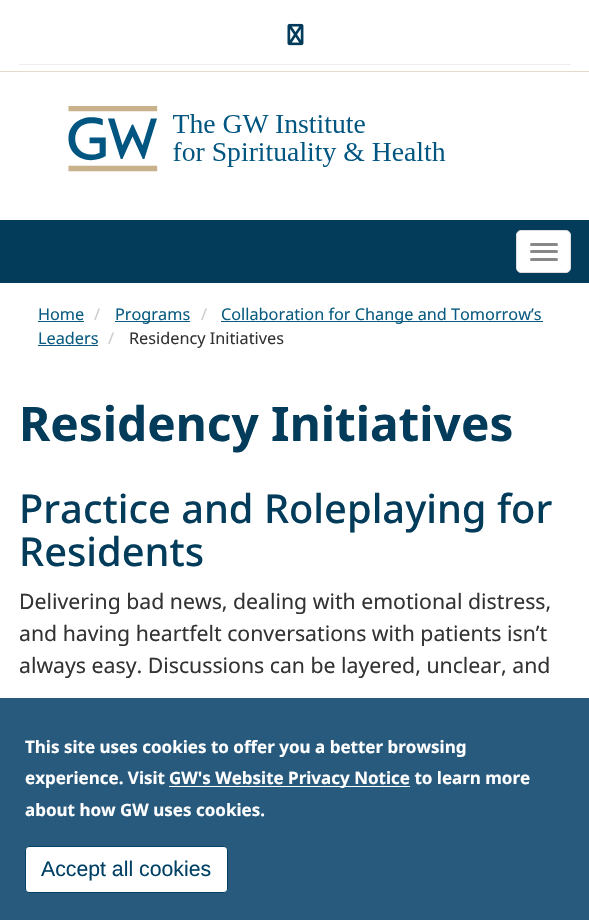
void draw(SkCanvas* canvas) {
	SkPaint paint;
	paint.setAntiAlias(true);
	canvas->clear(0xffffffff);
	paint.setColor(0xffe3dccc);
	canvas->drawRect(SkRect::MakeXYWH(0, 71, 589, 1), paint);
	paint.setColor(0xffeeeeee);
	canvas->drawRect(SkRect::MakeXYWH(19, 64, 552, 1), paint);
	canvas->drawImageRect(SkImages::DeferredFromEncodedData(SkData::MakeFromFileName("img1.png")), SkRect::MakeXYWH(287, 23, 17, 23), SkSamplingOptions());
	canvas->drawImageRect(SkImages::DeferredFromEncodedData(SkData::MakeFromFileName("img2.png")), SkRect::MakeXYWH(68, 106, 378, 66), SkSamplingOptions());
	paint.setColor(0xff033c5a);
	canvas->drawRect(SkRect::MakeXYWH(0, 220, 589, 63), paint);
	paint.setColor(0xffffffff);
	canvas->drawRoundRect(SkRect::MakeXYWH(516.5, 230.5, 54, 42), 4.5, 4.5, paint);
	paint.setStroke(true);
	paint.setStrokeWidth(1);
	paint.setColor(0xffdddddd);
	canvas->drawRoundRect(SkRect::MakeXYWH(516.5, 230.5, 54, 42), 4.5, 4.5, paint);
	paint.setStroke(false);
	paint.setColor(0xff888888);
	canvas->drawRoundRect(SkRect::MakeXYWH(530, 243, 28, 3), 1.5, 1.5, paint);
	canvas->drawRoundRect(SkRect::MakeXYWH(530, 250, 28, 3), 1.5, 1.5, paint);
	canvas->drawRoundRect(SkRect::MakeXYWH(530, 258, 28, 3), 1.5, 1.5, paint);
	SkFont f1(fontMgr->matchFamilyStyle("Noto Sans", SkFontStyle::Normal()), 16.25);
	f1.setSubpixel(true);
	paint.setColor(0xff0a5b80);
	canvas->drawString("Home", 38, 320, f1, paint);
	canvas->drawRect(SkRect::MakeXYWH(38, 321, 46, 1), paint);
	paint.setColor(0xffcccccc);
	canvas->drawString("/", 94, 320, f1, paint);
	paint.setColor(0xff0a5b80);
	canvas->drawRect(SkRect::MakeXYWH(115, 321, 75, 1), paint);
	canvas->drawString("Programs", 115, 320, f1, paint);
	paint.setColor(0xffcccccc);
	canvas->drawString("/", 201, 320, f1, paint);
	paint.setColor(0xff0a5b80);
	canvas->drawRect(SkRect::MakeXYWH(221, 321, 322, 1), paint);
	canvas->drawString("Collaboration for Change and Tomorrow’s", 221, 320, f1, paint);
	canvas->drawString("Leaders", 38, 344, f1, paint);
	canvas->drawRect(SkRect::MakeXYWH(38, 345, 60, 1), paint);
	paint.setColor(0xffcccccc);
	canvas->drawString("/", 108, 344, f1, paint);
	paint.setColor(0xff333333);
	canvas->drawString("Residency Initiatives", 129, 344, f1, paint);
	SkFont f2(fontMgr->matchFamilyStyle("Noto Sans", SkFontStyle::Bold()), 47.75);
	f2.setSubpixel(true);
	paint.setColor(0xff033c5a);
	canvas->drawString("Residency Initiatives", 19, 441, f2, paint);
	SkFont f3(fontMgr->matchFamilyStyle("Noto Sans", SkFontStyle(500, SkFontStyle::kNormal_Width, SkFontStyle::kUpright_Slant)), 39.8);
	f3.setSubpixel(true);
	canvas->drawString("Practice and Roleplaying for", 19, 523, f3, paint);
	canvas->drawString("Residents", 19, 566, f3, paint);
	SkFont f4(fontMgr->matchFamilyStyle("Noto Sans", SkFontStyle::Normal()), 21.25);
	f4.setSubpixel(true);
	paint.setColor(0xff333333);
	canvas->drawString("Delivering bad news, dealing with emotional distress,", 19, 609, f4, paint);
	canvas->drawString("and having heartfelt conversations with patients isn’t", 19, 641, f4, paint);
	canvas->drawString("always easy. Discussions can be layered, unclear, and", 19, 673, f4, paint);
	paint.setColor(0xff285a7d);
	canvas->drawRect(SkRect::MakeXYWH(0, 698, 589, 222), paint);
	SkFont f5(fontMgr->matchFamilyStyle("Noto Sans", SkFontStyle::Bold()), 17);
	f5.setSubpixel(true);
	paint.setColor(0xffffffff);
	canvas->drawString("This site uses cookies to offer you a better browsing", 25, 753, f5, paint);
	canvas->drawString("experience. Visit", 25, 784, f5, paint);
	canvas->drawRect(SkRect::MakeXYWH(169, 786, 241, 1), paint);
	canvas->drawString("GW's Website Privacy Notice to learn more", 169, 784, f5, paint);
	canvas->drawString("about how GW uses cookies.", 25, 816, f5, paint);
	canvas->drawRoundRect(SkRect::MakeXYWH(25.5, 846.5, 202, 46), 3.5, 3.5, paint);
	paint.setStroke(true);
	paint.setColor(0xff004065);
	canvas->drawRoundRect(SkRect::MakeXYWH(25.5, 846.5, 202, 46), 3.5, 3.5, paint);
	SkFont f6(fontMgr->matchFamilyStyle("Liberation Sans", SkFontStyle::Normal()), 21.25);
	f6.setSubpixel(true);
	paint.setStroke(false);
	canvas->drawString("Accept all cookies", 41, 876, f6, paint);
}
